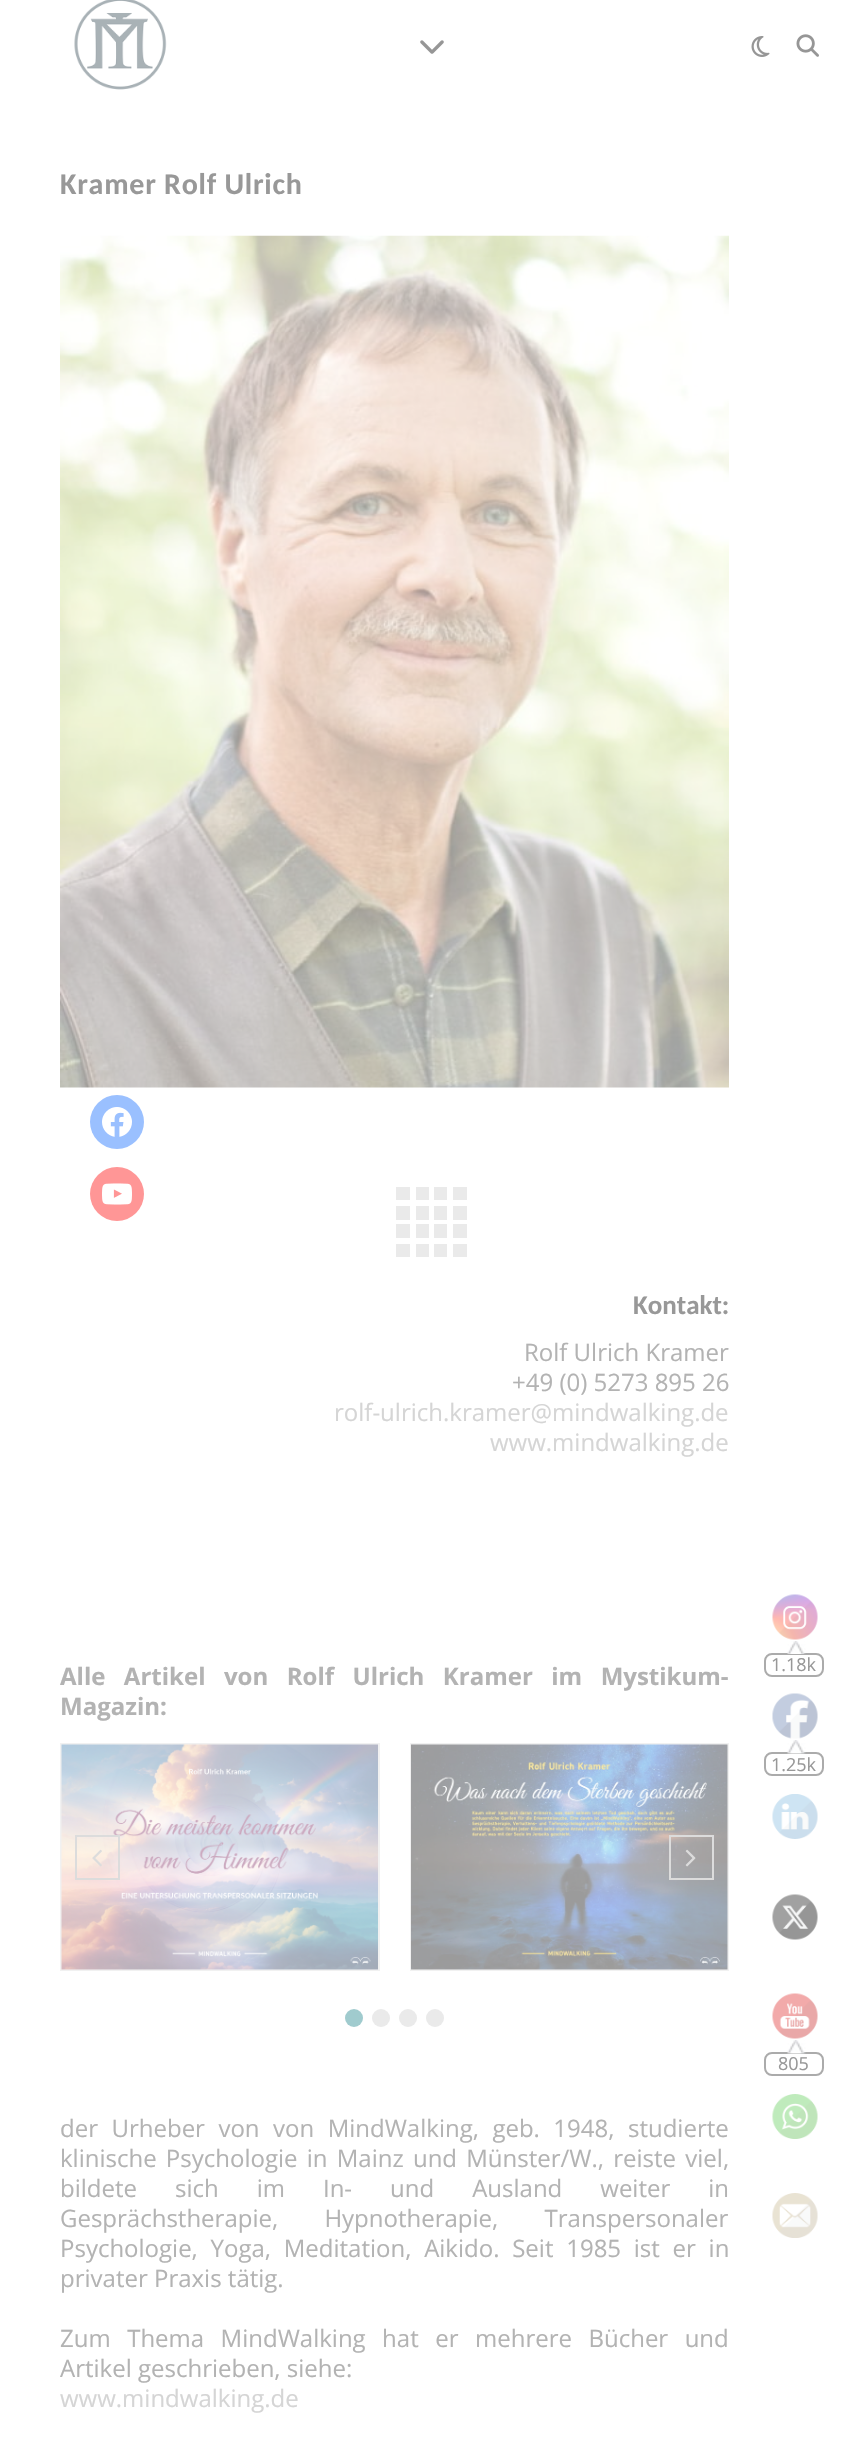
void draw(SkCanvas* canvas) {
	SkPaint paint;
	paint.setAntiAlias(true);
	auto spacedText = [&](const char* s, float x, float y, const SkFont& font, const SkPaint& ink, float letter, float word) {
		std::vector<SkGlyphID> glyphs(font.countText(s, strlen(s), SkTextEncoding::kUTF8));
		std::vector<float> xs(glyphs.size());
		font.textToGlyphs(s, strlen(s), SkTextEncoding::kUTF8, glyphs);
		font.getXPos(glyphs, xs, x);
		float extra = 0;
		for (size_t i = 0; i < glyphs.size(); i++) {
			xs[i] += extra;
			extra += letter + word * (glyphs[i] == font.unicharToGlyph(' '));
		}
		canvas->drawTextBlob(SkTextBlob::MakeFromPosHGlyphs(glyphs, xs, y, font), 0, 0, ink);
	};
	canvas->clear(0xffffffff);
	canvas->drawImageRect(SkImages::DeferredFromEncodedData(SkData::MakeFromFileName("img1.png")), SkRect::MakeXYWH(74, 0, 93, 90), SkSamplingOptions());
	canvas->drawImageRect(SkImages::DeferredFromEncodedData(SkData::MakeFromFileName("img2.png")), SkRect::MakeXYWH(420, 40, 24, 14), SkSamplingOptions());
	canvas->drawImageRect(SkImages::DeferredFromEncodedData(SkData::MakeFromFileName("img3.png")), SkRect::MakeXYWH(751, 36, 19, 21), SkSamplingOptions());
	canvas->drawImageRect(SkImages::DeferredFromEncodedData(SkData::MakeFromFileName("img4.png")), SkRect::MakeXYWH(796, 34, 23, 23), SkSamplingOptions());
	SkFont f1(fontMgr->matchFamilyStyle("Carlito", SkFontStyle::Bold()), 30);
	f1.setSubpixel(true);
	paint.setColor(0xff989898);
	spacedText("Kramer Rolf Ulrich", 60, 194, f1, paint, 0.75, 0);
	canvas->drawImageRect(SkImages::DeferredFromEncodedData(SkData::MakeFromFileName("img5.png")), SkRect::MakeXYWH(60, 235, 669, 853), SkSamplingOptions());
	paint.setColor(0xff9ac0ff);
	canvas->drawCircle(117, 1122, 27, paint);
	canvas->drawImageRect(SkImages::DeferredFromEncodedData(SkData::MakeFromFileName("img6.png")), SkRect::MakeXYWH(102, 1107, 30, 30), SkSamplingOptions());
	paint.setColor(0xffff9696);
	canvas->drawCircle(117, 1194, 27, paint);
	canvas->drawImageRect(SkImages::DeferredFromEncodedData(SkData::MakeFromFileName("img7.png")), SkRect::MakeXYWH(102, 1183, 30, 22), SkSamplingOptions());
	SkFont f2(fontMgr->matchFamilyStyle("Carlito", SkFontStyle::Bold()), 27);
	f2.setSubpixel(true);
	paint.setColor(0xff989898);
	canvas->drawString("Kontakt:", 633, 1314, f2, paint);
	SkFont f3(fontMgr->matchFamilyStyle("Open Sans", SkFontStyle::Normal()), 24);
	f3.setSubpixel(true);
	paint.setColor(0xffb3b3b3);
	canvas->drawString("Rolf Ulrich Kramer", 524, 1361, f3, paint);
	canvas->drawString("+49 (0) 5273 895 26", 512, 1391, f3, paint);
	paint.setColor(0xffd5d5d5);
	canvas->drawString("rolf-ulrich.kramer@mindwalking.de", 334, 1421, f3, paint);
	canvas->drawString("www.mindwalking.de", 490, 1451, f3, paint);
	SkFont f4(fontMgr->matchFamilyStyle("Open Sans", SkFontStyle::Bold()), 24);
	f4.setSubpixel(true);
	paint.setColor(0xffb3b3b3);
	spacedText("Alle Artikel von Rolf Ulrich Kramer im Mystikum-", 60, 1685, f4, paint, 0, 12.25);
	canvas->drawString("Magazin:", 60, 1715, f4, paint);
	paint.setStroke(true);
	paint.setStrokeWidth(2);
	paint.setColor(0xfff1f1f1);
	canvas->drawRect(SkRect::MakeXYWH(61, 1744, 318, 226), paint);
	canvas->drawImageRect(SkImages::DeferredFromEncodedData(SkData::MakeFromFileName("img8.png")), SkRect::MakeXYWH(61, 1744, 317, 226), SkSamplingOptions());
	canvas->drawRect(SkRect::MakeXYWH(411, 1744, 317, 226), paint);
	canvas->drawImageRect(SkImages::DeferredFromEncodedData(SkData::MakeFromFileName("img9.png")), SkRect::MakeXYWH(411, 1744, 317, 226), SkSamplingOptions());
	paint.setColor(0xffdcdcdc);
	canvas->drawRect(SkRect::MakeXYWH(76, 1836, 43, 43), paint);
	canvas->drawImageRect(SkImages::DeferredFromEncodedData(SkData::MakeFromFileName("img10.png")), SkRect::MakeXYWH(92, 1849, 10, 18), SkSamplingOptions());
	canvas->drawRect(SkRect::MakeXYWH(670, 1836, 43, 43), paint);
	canvas->drawImageRect(SkImages::DeferredFromEncodedData(SkData::MakeFromFileName("img11.png")), SkRect::MakeXYWH(685, 1849, 11, 18), SkSamplingOptions());
	paint.setStroke(false);
	paint.setColor(0xffa0cbce);
	canvas->drawCircle(354, 2018, 9, paint);
	paint.setColor(0xffeaeaea);
	canvas->drawCircle(381, 2018, 9, paint);
	canvas->drawCircle(408, 2018, 9, paint);
	canvas->drawCircle(435, 2018, 9, paint);
	paint.setColor(0xffb3b3b3);
	spacedText("der Urheber von von MindWalking, geb. 1948, studierte", 60, 2137, f3, paint, 0, 7.25);
	spacedText("klinische Psychologie in Mainz und Münster/W., reiste viel,", 60, 2167, f3, paint, 0, 3);
	spacedText("bildete sich im In- und Ausland weiter in", 60, 2197, f3, paint, 0, 31.75);
	spacedText("Gesprächstherapie, Hypnotherapie, Transpersonaler", 60, 2227, f3, paint, 0, 40);
	spacedText("Psychologie, Yoga, Meditation, Aikido. Seit 1985 ist er in", 60, 2257, f3, paint, 0, 6.5);
	canvas->drawString("privater Praxis tätig.", 60, 2287, f3, paint);
	spacedText("Zum Thema MindWalking hat er mehrere Bücher und", 60, 2347, f3, paint, 0, 10.25);
	canvas->drawString("Artikel geschrieben, siehe:", 60, 2377, f3, paint);
	paint.setColor(0xffd5d5d5);
	canvas->drawString("www.mindwalking.de", 60, 2407, f3, paint);
	paint.setColor(0xffeaeaea);
	canvas->drawRect(SkRect::MakeXYWH(396, 1187, 14, 13), paint);
	canvas->drawRect(SkRect::MakeXYWH(416, 1187, 13, 13), paint);
	canvas->drawRect(SkRect::MakeXYWH(434, 1187, 13, 13), paint);
	canvas->drawRect(SkRect::MakeXYWH(453, 1187, 14, 13), paint);
	canvas->drawRect(SkRect::MakeXYWH(396, 1206, 14, 14), paint);
	canvas->drawRect(SkRect::MakeXYWH(416, 1206, 13, 14), paint);
	canvas->drawRect(SkRect::MakeXYWH(434, 1206, 13, 14), paint);
	canvas->drawRect(SkRect::MakeXYWH(453, 1206, 14, 14), paint);
	canvas->drawRect(SkRect::MakeXYWH(396, 1224, 14, 14), paint);
	canvas->drawRect(SkRect::MakeXYWH(416, 1224, 13, 14), paint);
	canvas->drawRect(SkRect::MakeXYWH(434, 1224, 13, 14), paint);
	canvas->drawRect(SkRect::MakeXYWH(453, 1224, 14, 14), paint);
	canvas->drawRect(SkRect::MakeXYWH(396, 1244, 14, 13), paint);
	canvas->drawRect(SkRect::MakeXYWH(416, 1244, 13, 13), paint);
	canvas->drawRect(SkRect::MakeXYWH(434, 1244, 13, 13), paint);
	canvas->drawRect(SkRect::MakeXYWH(453, 1244, 14, 13), paint);
	canvas->drawImageRect(SkImages::DeferredFromEncodedData(SkData::MakeFromFileName("img12.png")), SkRect::MakeXYWH(772, 1594, 46, 46), SkSamplingOptions());
	paint.setStroke(true);
	paint.setColor(0xffababab);
	canvas->drawRoundRect(SkRect::MakeXYWH(765, 1654, 58, 22), 7, 7, paint);
	canvas->drawImageRect(SkImages::DeferredFromEncodedData(SkData::MakeFromFileName("img13.png")), SkRect::MakeXYWH(787, 1641, 19, 13), SkSamplingOptions());
	SkFont f5(fontMgr->matchFamilyStyle("Open Sans", SkFontStyle::Normal()), 18);
	f5.setSubpixel(true);
	paint.setStroke(false);
	paint.setColor(0xff989898);
	canvas->drawString("1.18k", 771, 1671, f5, paint);
	canvas->drawImageRect(SkImages::DeferredFromEncodedData(SkData::MakeFromFileName("img14.png")), SkRect::MakeXYWH(772, 1693, 46, 46), SkSamplingOptions());
	paint.setStroke(true);
	paint.setColor(0xffababab);
	canvas->drawRoundRect(SkRect::MakeXYWH(765, 1753, 58, 22), 7, 7, paint);
	canvas->drawImageRect(SkImages::DeferredFromEncodedData(SkData::MakeFromFileName("img15.png")), SkRect::MakeXYWH(787, 1740, 19, 14), SkSamplingOptions());
	paint.setStroke(false);
	paint.setColor(0xff989898);
	canvas->drawString("1.25k", 771, 1771, f5, paint);
	canvas->drawImageRect(SkImages::DeferredFromEncodedData(SkData::MakeFromFileName("img16.png")), SkRect::MakeXYWH(772, 1794, 46, 45), SkSamplingOptions());
	canvas->drawImageRect(SkImages::DeferredFromEncodedData(SkData::MakeFromFileName("img17.png")), SkRect::MakeXYWH(772, 1894, 46, 46), SkSamplingOptions());
	canvas->drawImageRect(SkImages::DeferredFromEncodedData(SkData::MakeFromFileName("img18.png")), SkRect::MakeXYWH(772, 1993, 46, 46), SkSamplingOptions());
	paint.setStroke(true);
	paint.setColor(0xffababab);
	canvas->drawRoundRect(SkRect::MakeXYWH(765, 2053, 58, 22), 7, 7, paint);
	canvas->drawImageRect(SkImages::DeferredFromEncodedData(SkData::MakeFromFileName("img15.png")), SkRect::MakeXYWH(787, 2040, 19, 14), SkSamplingOptions());
	paint.setStroke(false);
	paint.setColor(0xff989898);
	canvas->drawString("805", 778, 2070, f5, paint);
	canvas->drawImageRect(SkImages::DeferredFromEncodedData(SkData::MakeFromFileName("img19.png")), SkRect::MakeXYWH(772, 2094, 46, 45), SkSamplingOptions());
	canvas->drawImageRect(SkImages::DeferredFromEncodedData(SkData::MakeFromFileName("img20.png")), SkRect::MakeXYWH(772, 2193, 46, 45), SkSamplingOptions());
}
